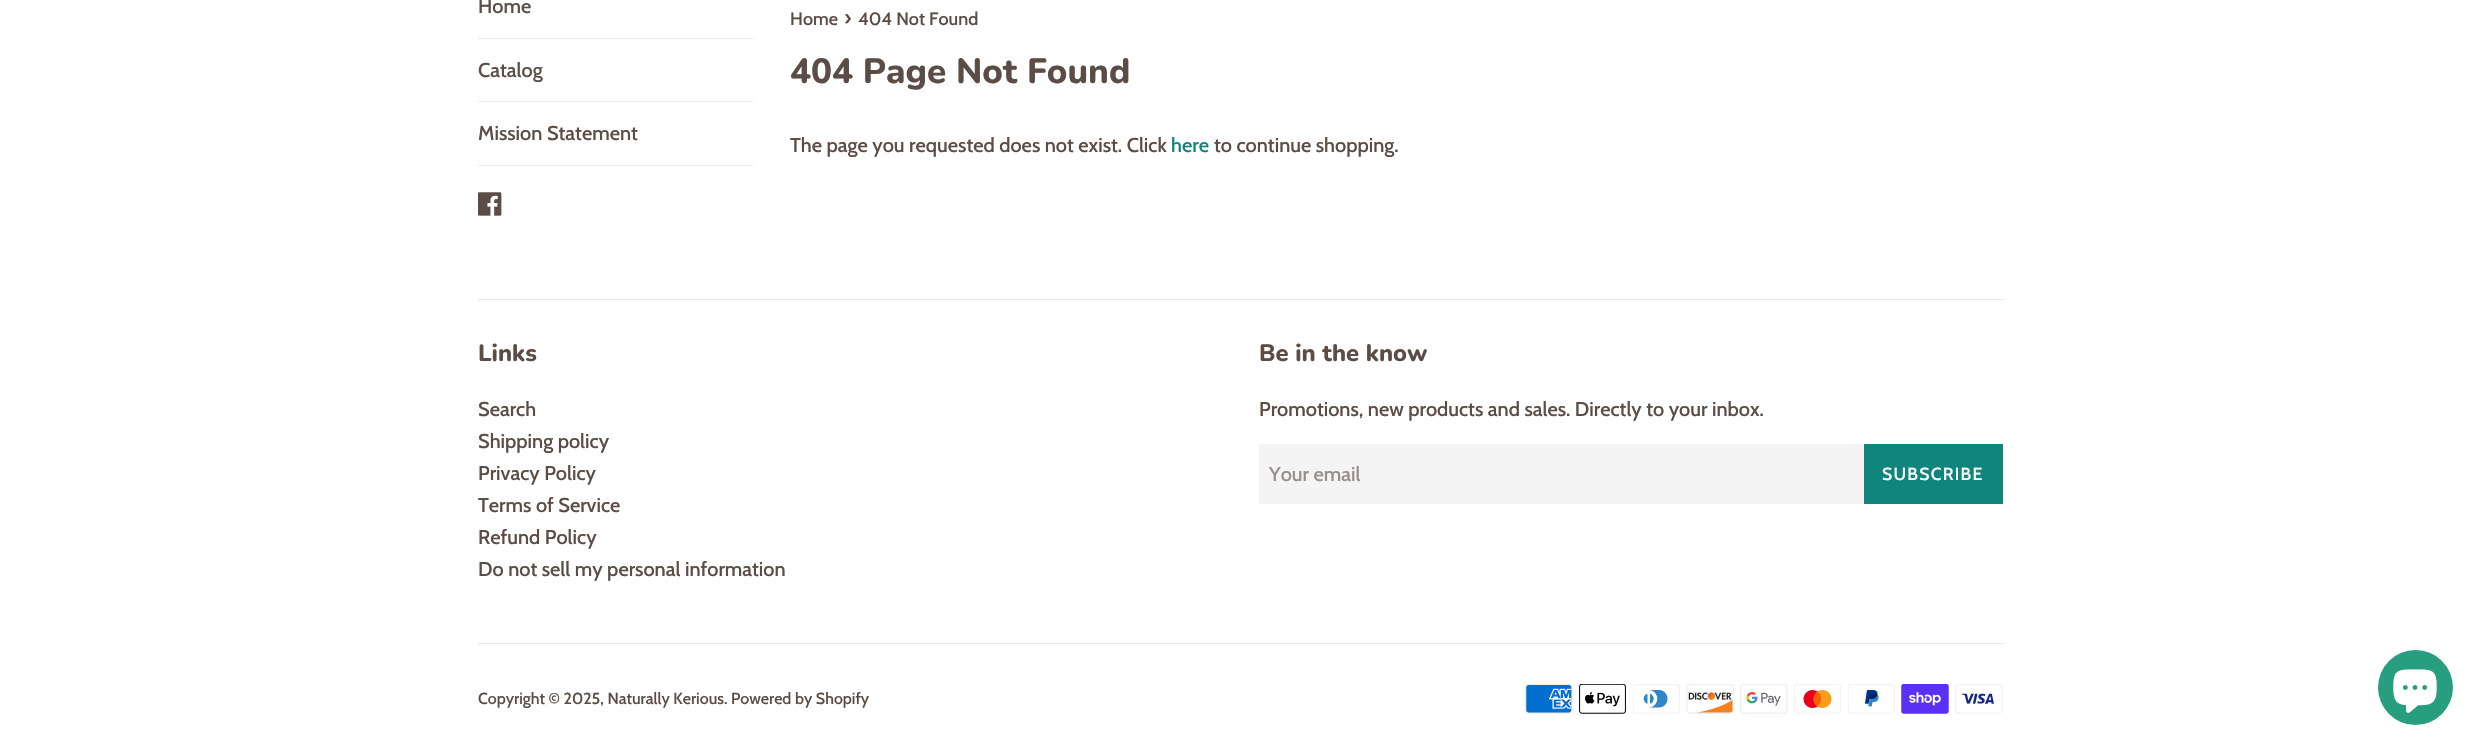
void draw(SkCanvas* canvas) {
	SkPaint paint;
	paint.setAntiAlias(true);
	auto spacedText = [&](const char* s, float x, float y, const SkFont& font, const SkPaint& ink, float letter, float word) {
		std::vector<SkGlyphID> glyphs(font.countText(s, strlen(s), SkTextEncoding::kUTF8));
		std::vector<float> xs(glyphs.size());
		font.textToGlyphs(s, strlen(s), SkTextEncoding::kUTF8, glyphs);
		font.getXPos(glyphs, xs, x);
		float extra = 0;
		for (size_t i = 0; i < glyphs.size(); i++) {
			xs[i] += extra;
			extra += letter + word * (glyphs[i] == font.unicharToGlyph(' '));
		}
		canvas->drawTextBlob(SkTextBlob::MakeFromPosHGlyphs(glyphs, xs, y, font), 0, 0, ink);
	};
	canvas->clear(0xffffffff);
	paint.setColor(0xffede8e7);
	canvas->drawRect(SkRect::MakeXYWH(478, 38, 275, 1), paint);
	SkFont f1(fontMgr->matchFamilyStyle("Cabin", SkFontStyle(500, SkFontStyle::kNormal_Width, SkFontStyle::kUpright_Slant)), 20);
	f1.setSubpixel(true);
	paint.setColor(0xff5b4c45);
	canvas->drawString("Home", 478, 13, f1, paint);
	paint.setColor(0xffede8e7);
	canvas->drawRect(SkRect::MakeXYWH(478, 101, 275, 1), paint);
	paint.setColor(0xff5b4c45);
	canvas->drawString("Catalog", 478, 77, f1, paint);
	paint.setColor(0xffede8e7);
	canvas->drawRect(SkRect::MakeXYWH(478, 165, 275, 1), paint);
	paint.setColor(0xff5b4c45);
	canvas->drawString("Mission Statement", 478, 140, f1, paint);
	canvas->drawImageRect(SkImages::DeferredFromEncodedData(SkData::MakeFromFileName("img1.png")), SkRect::MakeXYWH(478, 192, 24, 24), SkSamplingOptions());
	SkFont f2(fontMgr->matchFamilyStyle("Cabin", SkFontStyle(500, SkFontStyle::kNormal_Width, SkFontStyle::kUpright_Slant)), 18);
	f2.setSubpixel(true);
	canvas->drawString("Home", 790, 25, f2, paint);
	SkFont f3(fontMgr->matchFamilyStyle("Cabin", SkFontStyle(500, SkFontStyle::kNormal_Width, SkFontStyle::kUpright_Slant)), 22);
	f3.setSubpixel(true);
	canvas->drawString("›", 844, 25, f3, paint);
	canvas->drawString("404 Not Found", 858, 25, f2, paint);
	SkFont f4(fontMgr->matchFamilyStyle("Nunito", SkFontStyle(800, SkFontStyle::kNormal_Width, SkFontStyle::kUpright_Slant)), 35);
	f4.setSubpixel(true);
	canvas->drawString("404 Page Not Found", 790, 83, f4, paint);
	canvas->drawString("The page you requested does not exist. Click", 790, 152, f1, paint);
	paint.setColor(0xff0f857c);
	canvas->drawString("here", 1171, 152, f1, paint);
	paint.setColor(0xff5b4c45);
	canvas->drawString("to continue shopping.", 1214, 152, f1, paint);
	paint.setColor(0xffede8e7);
	canvas->drawRect(SkRect::MakeXYWH(478, 299, 1525, 1), paint);
	SkFont f5(fontMgr->matchFamilyStyle("Nunito", SkFontStyle(800, SkFontStyle::kNormal_Width, SkFontStyle::kUpright_Slant)), 23.75);
	f5.setSubpixel(true);
	paint.setColor(0xff5b4c45);
	canvas->drawString("Links", 478, 361, f5, paint);
	canvas->drawString("Search", 478, 416, f1, paint);
	canvas->drawString("Shipping policy", 478, 448, f1, paint);
	canvas->drawString("Privacy Policy", 478, 480, f1, paint);
	canvas->drawString("Terms of Service", 478, 512, f1, paint);
	canvas->drawString("Refund Policy", 478, 544, f1, paint);
	canvas->drawString("Do not sell my personal information", 478, 576, f1, paint);
	canvas->drawString("Be in the know", 1259, 361, f5, paint);
	canvas->drawString("Promotions, new products and sales. Directly to your inbox.", 1259, 416, f1, paint);
	paint.setColor(0xfff4f4f4);
	canvas->drawRect(SkRect::MakeXYWH(1259, 444, 605, 60), paint);
	paint.setColor(0xff988f8b);
	canvas->drawString("Your email", 1269, 481, f1, paint);
	paint.setColor(0xff0f857c);
	canvas->drawRect(SkRect::MakeXYWH(1864, 444, 139, 60), paint);
	SkFont f6(fontMgr->matchFamilyStyle("Cabin", SkFontStyle(500, SkFontStyle::kNormal_Width, SkFontStyle::kUpright_Slant)), 17.5);
	f6.setSubpixel(true);
	paint.setColor(0xffffffff);
	spacedText("SUBSCRIBE", 1882, 480, f6, paint, 1.25, 0);
	paint.setColor(0xffede8e7);
	canvas->drawRect(SkRect::MakeXYWH(478, 643, 1525, 1), paint);
	SkFont f7(fontMgr->matchFamilyStyle("Cabin", SkFontStyle(500, SkFontStyle::kNormal_Width, SkFontStyle::kUpright_Slant)), 16);
	f7.setSubpixel(true);
	paint.setColor(0xff5b4c45);
	canvas->drawString("Copyright © 2025, Naturally Kerious. Powered by Shopify", 478, 704, f7, paint);
	canvas->drawImageRect(SkImages::DeferredFromEncodedData(SkData::MakeFromFileName("img2.png")), SkRect::MakeXYWH(1525, 684, 48, 30), SkSamplingOptions());
	canvas->drawImageRect(SkImages::DeferredFromEncodedData(SkData::MakeFromFileName("img3.png")), SkRect::MakeXYWH(1579, 684, 47, 30), SkSamplingOptions());
	canvas->drawImageRect(SkImages::DeferredFromEncodedData(SkData::MakeFromFileName("img4.png")), SkRect::MakeXYWH(1633, 684, 47, 30), SkSamplingOptions());
	canvas->drawImageRect(SkImages::DeferredFromEncodedData(SkData::MakeFromFileName("img5.png")), SkRect::MakeXYWH(1686, 684, 48, 30), SkSamplingOptions());
	canvas->drawImageRect(SkImages::DeferredFromEncodedData(SkData::MakeFromFileName("img6.png")), SkRect::MakeXYWH(1740, 684, 48, 30), SkSamplingOptions());
	canvas->drawImageRect(SkImages::DeferredFromEncodedData(SkData::MakeFromFileName("img7.png")), SkRect::MakeXYWH(1794, 684, 47, 30), SkSamplingOptions());
	canvas->drawImageRect(SkImages::DeferredFromEncodedData(SkData::MakeFromFileName("img8.png")), SkRect::MakeXYWH(1848, 684, 47, 30), SkSamplingOptions());
	canvas->drawImageRect(SkImages::DeferredFromEncodedData(SkData::MakeFromFileName("img9.png")), SkRect::MakeXYWH(1901, 684, 48, 30), SkSamplingOptions());
	canvas->drawImageRect(SkImages::DeferredFromEncodedData(SkData::MakeFromFileName("img10.png")), SkRect::MakeXYWH(1955, 684, 48, 30), SkSamplingOptions());
	paint.setColor(0xff279e7d);
	canvas->drawCircle(2415.5, 687.5, 37.5, paint);
	canvas->drawImageRect(SkImages::DeferredFromEncodedData(SkData::MakeFromFileName("img11.png")), SkRect::MakeXYWH(2393, 669, 44, 44), SkSamplingOptions());
}
